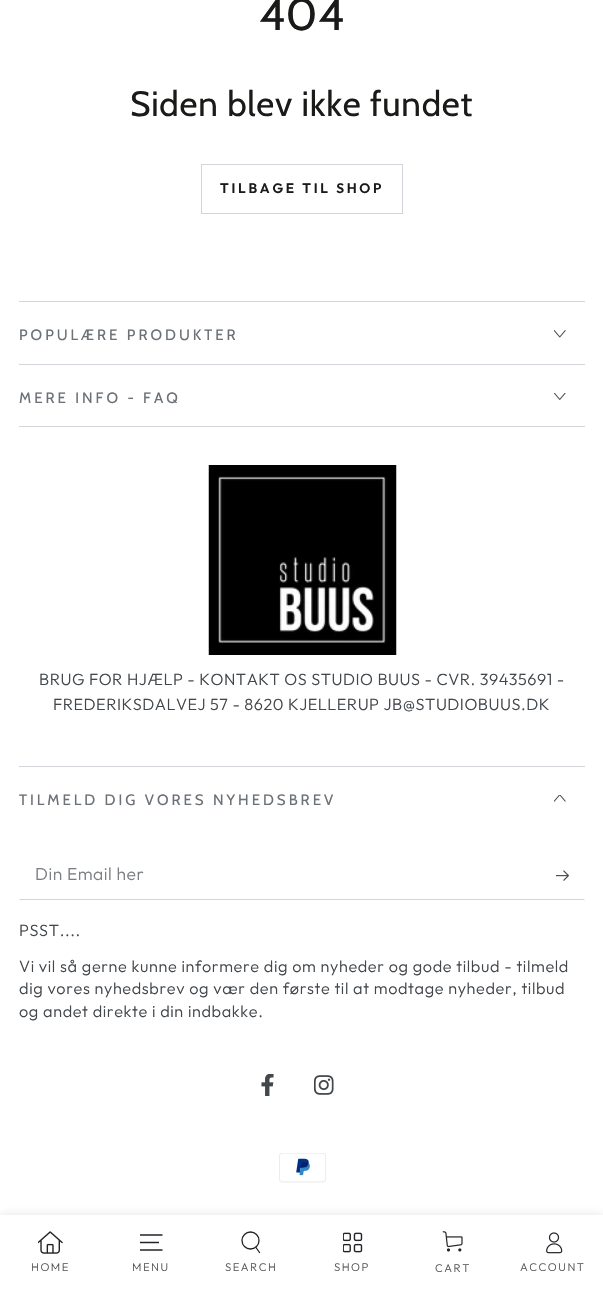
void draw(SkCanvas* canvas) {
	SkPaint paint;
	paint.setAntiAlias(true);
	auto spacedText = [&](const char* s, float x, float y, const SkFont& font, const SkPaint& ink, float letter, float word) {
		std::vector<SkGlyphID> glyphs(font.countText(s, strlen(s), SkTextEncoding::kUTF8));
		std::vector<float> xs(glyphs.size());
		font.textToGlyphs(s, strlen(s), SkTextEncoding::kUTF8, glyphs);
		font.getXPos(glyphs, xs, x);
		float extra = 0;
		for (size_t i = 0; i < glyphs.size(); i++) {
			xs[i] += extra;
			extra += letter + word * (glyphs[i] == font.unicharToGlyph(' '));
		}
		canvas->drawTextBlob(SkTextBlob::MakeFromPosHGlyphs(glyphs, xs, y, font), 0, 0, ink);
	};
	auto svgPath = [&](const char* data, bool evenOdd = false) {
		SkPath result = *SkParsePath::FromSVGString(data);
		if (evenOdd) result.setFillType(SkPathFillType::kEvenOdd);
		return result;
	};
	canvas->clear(0xffffffff);
	SkFont f1(fontMgr->matchFamilyStyle("Cabin", SkFontStyle::Normal()), 45);
	f1.setSubpixel(true);
	paint.setColor(0xff1a1b18);
	spacedText("404", 259, 30, f1, paint, 0.75, 0);
	SkFont f2(fontMgr->matchFamilyStyle("Cabin", SkFontStyle::Normal()), 35);
	f2.setSubpixel(true);
	spacedText("Siden blev ikke fundet", 130, 116, f2, paint, 0.75, 0);
	paint.setStroke(true);
	paint.setStrokeWidth(1);
	paint.setColor(0xffd2d5d9);
	canvas->drawRect(SkRect::MakeXYWH(201.5, 164.5, 201, 49), paint);
	SkFont f3(fontMgr->matchFamilyStyle("Outfit", SkFontStyle(600, SkFontStyle::kNormal_Width, SkFontStyle::kUpright_Slant)), 13.75);
	f3.setSubpixel(true);
	paint.setStroke(false);
	paint.setColor(0xff1a1b18);
	spacedText("TILBAGE TIL SHOP", 220, 193, f3, paint, 2.75, 0);
	paint.setColor(0xffd2d5d9);
	canvas->drawRect(SkRect::MakeXYWH(19, 301, 566, 1), paint);
	canvas->drawRect(SkRect::MakeXYWH(19, 364, 566, 1), paint);
	SkFont f4(fontMgr->matchFamilyStyle("Cabin", SkFontStyle::Normal()), 15);
	f4.setSubpixel(true);
	paint.setColor(0xff6b7177);
	spacedText("POPULÆRE PRODUKTER", 19, 340, f4, paint, 3, 0);
	canvas->drawImageRect(SkImages::DeferredFromEncodedData(SkData::MakeFromFileName("img1.png")), SkRect::MakeXYWH(554, 330, 12, 8), SkSamplingOptions());
	paint.setColor(0xffd2d5d9);
	canvas->drawRect(SkRect::MakeXYWH(19, 426, 566, 1), paint);
	paint.setColor(0xff6b7177);
	spacedText("MERE INFO - FAQ", 19, 403, f4, paint, 3, 0);
	canvas->drawImageRect(SkImages::DeferredFromEncodedData(SkData::MakeFromFileName("img2.png")), SkRect::MakeXYWH(554, 393, 12, 7), SkSamplingOptions());
	paint.setColor(0xffd2d5d9);
	canvas->drawRect(SkRect::MakeXYWH(19, 766, 566, 1), paint);
	canvas->drawImageRect(SkImages::DeferredFromEncodedData(SkData::MakeFromFileName("img3.png")), SkRect::MakeXYWH(208, 465, 189, 190), SkSamplingOptions());
	SkFont f5(fontMgr->matchFamilyStyle("Outfit", SkFontStyle(300, SkFontStyle::kNormal_Width, SkFontStyle::kUpright_Slant)), 16.25);
	f5.setSubpixel(true);
	paint.setColor(0xff42474c);
	spacedText("BRUG FOR HJÆLP - KONTAKT OS STUDIO BUUS - CVR. 39435691 -", 39, 685, f5, paint, 0.5, 0);
	spacedText("FREDERIKSDALVEJ 57 - 8620 KJELLERUP JB@STUDIOBUUS.DK", 53, 710, f5, paint, 0.5, 0);
	paint.setColor(0xff6b7177);
	spacedText("TILMELD DIG VORES NYHEDSBREV", 19, 805, f4, paint, 3, 0);
	canvas->drawImageRect(SkImages::DeferredFromEncodedData(SkData::MakeFromFileName("img4.png")), SkRect::MakeXYWH(554, 795, 12, 7), SkSamplingOptions());
	paint.setColor(0xffd2d5d9);
	canvas->drawPath(svgPath("M585 900H19L20 899H584Z"), paint);
	SkFont f6(fontMgr->matchFamilyStyle("Outfit", SkFontStyle(300, SkFontStyle::kNormal_Width, SkFontStyle::kUpright_Slant)), 17.5);
	f6.setSubpixel(true);
	paint.setColor(0xff7b7e82);
	spacedText("Din Email her", 35, 880, f6, paint, 0.5, 0);
	canvas->drawImageRect(SkImages::DeferredFromEncodedData(SkData::MakeFromFileName("img5.png")), SkRect::MakeXYWH(556, 870, 13, 11), SkSamplingOptions());
	paint.setColor(0xff42474c);
	spacedText("PSST....", 19, 936, f5, paint, 0.62, 0);
	spacedText("Vi vil så gerne kunne informere dig om nyheder og gode tilbud - tilmeld", 19, 972, f5, paint, 0.62, 0);
	spacedText("dig vores nyhedsbrev og vær den første til at modtage nyheder, tilbud", 19, 994, f5, paint, 0.62, 0);
	spacedText("og andet direkte i din indbakke.", 19, 1017, f5, paint, 0.62, 0);
	canvas->drawImageRect(SkImages::DeferredFromEncodedData(SkData::MakeFromFileName("img6.png")), SkRect::MakeXYWH(261, 1074, 13, 22), SkSamplingOptions());
	canvas->drawImageRect(SkImages::DeferredFromEncodedData(SkData::MakeFromFileName("img7.png")), SkRect::MakeXYWH(313, 1075, 21, 20), SkSamplingOptions());
	canvas->drawImageRect(SkImages::DeferredFromEncodedData(SkData::MakeFromFileName("img8.png")), SkRect::MakeXYWH(279, 1153, 47, 30), SkSamplingOptions());
	paint.setColor(0x26212326);
	paint.setMaskFilter(SkMaskFilter::MakeBlur(kNormal_SkBlurStyle, 5));
	canvas->drawRect(SkRect::MakeXYWH(0, 1216, 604, 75), paint);
	paint.setMaskFilter(nullptr);
	paint.setColor(0xffffffff);
	canvas->drawRect(SkRect::MakeXYWH(0, 1215, 603, 75), paint);
	canvas->drawImageRect(SkImages::DeferredFromEncodedData(SkData::MakeFromFileName("img9.png")), SkRect::MakeXYWH(38, 1231, 25, 23), SkSamplingOptions());
	SkFont f7(fontMgr->matchFamilyStyle("Outfit", SkFontStyle(300, SkFontStyle::kNormal_Width, SkFontStyle::kUpright_Slant)), 11.25);
	f7.setSubpixel(true);
	paint.setColor(0xff595a5c);
	spacedText("HOME", 31, 1271, f7, paint, 1.5, 0);
	paint.setStroke(true);
	paint.setStrokeWidth(1.4);
	paint.setColor(0xff212326);
	canvas->drawPath(svgPath("M140 1250H162.5M140 1242.5H159M140 1235H162.5"), paint);
	paint.setStroke(false);
	paint.setColor(0xff595a5c);
	spacedText("MENU", 132, 1271, f7, paint, 1.5, 0);
	paint.setStroke(true);
	paint.setStrokeWidth(1.3);
	paint.setColor(0xff212326);
	canvas->drawCircle(250.5, 1240.5, 8.5, paint);
	paint.setStrokeCap(SkPaint::kRound_Cap);
	canvas->drawPath(svgPath("M256 1247.5L259.5 1252.5"), paint);
	paint.setStroke(false);
	paint.setColor(0xff595a5c);
	spacedText("SEARCH", 225, 1271, f7, paint, 1.5, 0);
	canvas->drawImageRect(SkImages::DeferredFromEncodedData(SkData::MakeFromFileName("img10.png")), SkRect::MakeXYWH(343, 1232, 20, 21), SkSamplingOptions());
	spacedText("SHOP", 334, 1271, f7, paint, 1.5, 0);
	canvas->drawImageRect(SkImages::DeferredFromEncodedData(SkData::MakeFromFileName("img11.png")), SkRect::MakeXYWH(442, 1231, 21, 21), SkSamplingOptions());
	spacedText("CART", 435, 1272, f7, paint, 1.5, 0);
	canvas->drawImageRect(SkImages::DeferredFromEncodedData(SkData::MakeFromFileName("img12.png")), SkRect::MakeXYWH(546, 1232, 17, 22), SkSamplingOptions());
	spacedText("ACCOUNT", 520, 1271, f7, paint, 1.5, 0);
}
